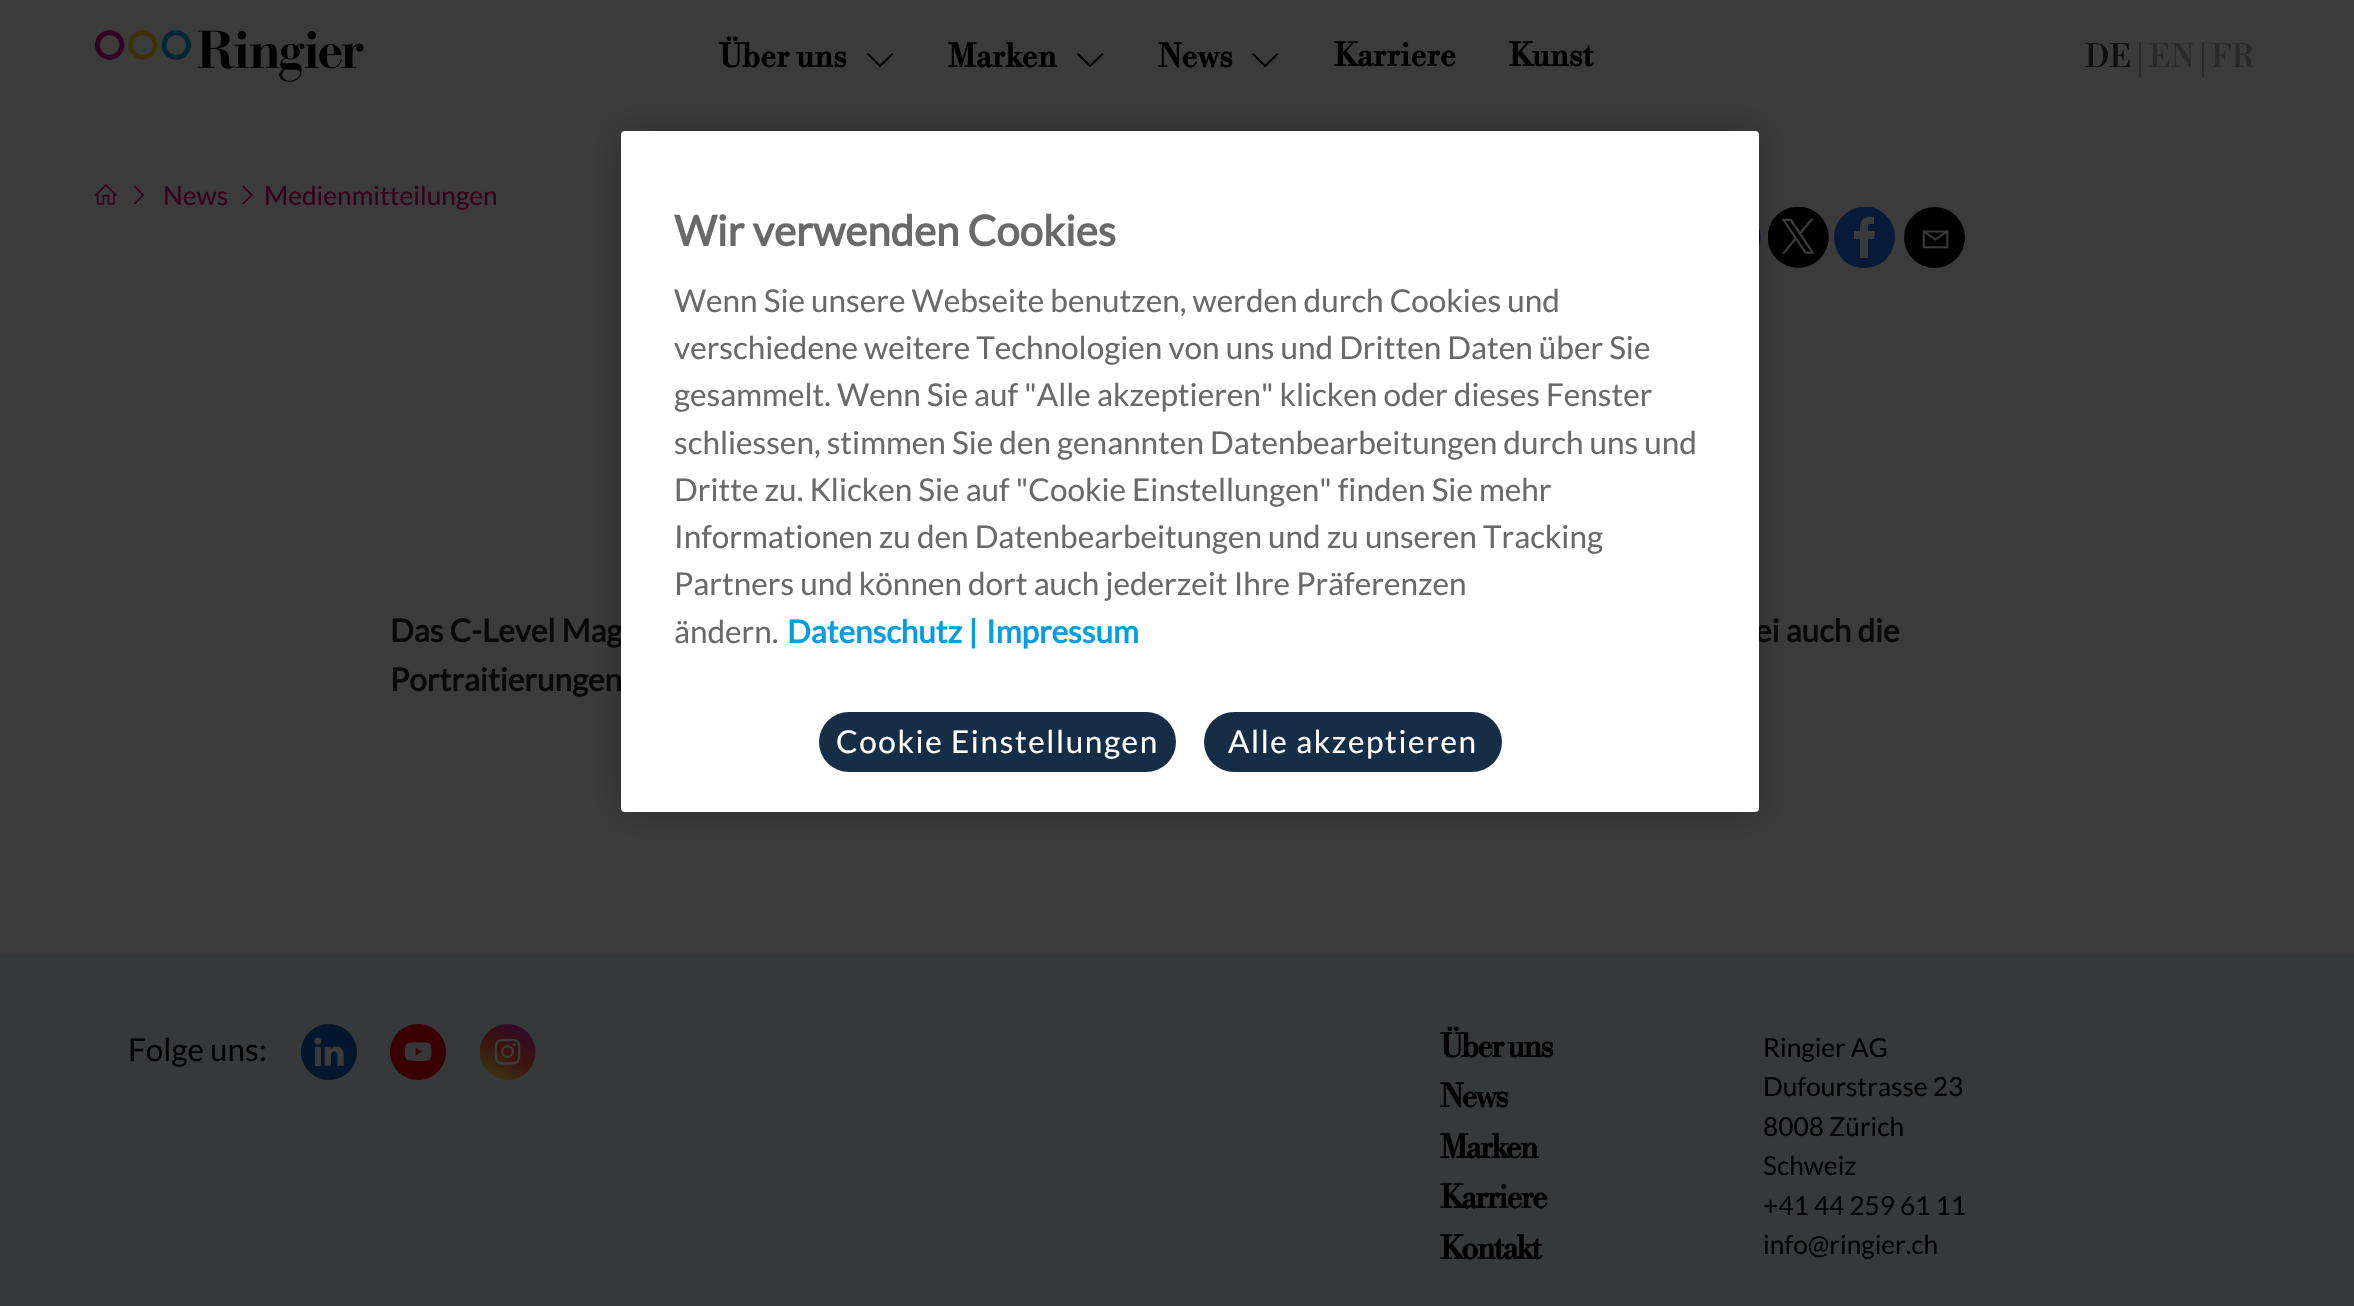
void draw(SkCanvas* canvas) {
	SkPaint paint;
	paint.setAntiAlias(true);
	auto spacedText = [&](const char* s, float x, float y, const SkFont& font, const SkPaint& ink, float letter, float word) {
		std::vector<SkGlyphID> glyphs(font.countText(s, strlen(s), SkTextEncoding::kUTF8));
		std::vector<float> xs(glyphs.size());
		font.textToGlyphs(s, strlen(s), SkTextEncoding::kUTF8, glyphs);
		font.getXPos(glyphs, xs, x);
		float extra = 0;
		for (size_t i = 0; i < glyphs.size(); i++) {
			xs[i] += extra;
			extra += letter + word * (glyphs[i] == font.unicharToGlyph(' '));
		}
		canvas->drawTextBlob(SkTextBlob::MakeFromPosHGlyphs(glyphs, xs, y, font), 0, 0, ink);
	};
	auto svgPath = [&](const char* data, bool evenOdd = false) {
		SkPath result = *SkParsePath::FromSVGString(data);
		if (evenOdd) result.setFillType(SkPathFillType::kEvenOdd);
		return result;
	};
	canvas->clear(0xff3b3b3b);
	canvas->drawImageRect(SkImages::DeferredFromEncodedData(SkData::MakeFromFileName("img1.png")), SkRect::MakeXYWH(94, 30, 270, 52), SkSamplingOptions());
	SkFont f1(fontMgr->matchFamilyStyle("Libre Bodoni", SkFontStyle::Bold()), 31.5);
	f1.setSubpixel(true);
	paint.setColor(0xff000000);
	canvas->drawString("Über uns", 719, 67, f1, paint);
	canvas->drawPath(svgPath("M868.5 53L867 54.5L880 67.5L893.5 54.5L892 53L880 64.5Z"), paint);
	canvas->drawString("Marken", 948, 67, f1, paint);
	canvas->drawPath(svgPath("M1078.5 53L1077 54.5L1090 67.5L1103.5 54.5L1102 53L1090 64.5Z"), paint);
	canvas->drawString("News", 1158, 67, f1, paint);
	canvas->drawPath(svgPath("M1253.5 53L1252 54.5L1265 67.5L1278.5 54.5L1277 53L1265 64.5Z"), paint);
	canvas->drawString("Karriere", 1334, 66, f1, paint);
	canvas->drawString("Kunst", 1509, 66, f1, paint);
	SkFont f2(fontMgr->matchFamilyStyle("Libre Bodoni", SkFontStyle::Normal()), 31.5);
	f2.setSubpixel(true);
	paint.setColor(0xff0f0f0f);
	canvas->drawString("DE", 2085, 67, f2, paint);
	paint.setColor(0xff2a2a2a);
	canvas->drawRect(SkRect::MakeXYWH(2139, 42, 2, 35), paint);
	canvas->drawString("EN", 2149, 67, f2, paint);
	canvas->drawRect(SkRect::MakeXYWH(2202, 42, 2, 35), paint);
	canvas->drawString("FR", 2211, 67, f2, paint);
	canvas->drawImageRect(SkImages::DeferredFromEncodedData(SkData::MakeFromFileName("img2.png")), SkRect::MakeXYWH(94, 184, 23, 21), SkSamplingOptions());
	paint.setColor(0xff35001d);
	canvas->drawPath(svgPath("M135 185.5L133.5 186.5L142 195L133.5 203.5L135 204.5L144.5 195Z"), paint);
	SkFont f3(fontMgr->matchFamilyStyle("Lato", SkFontStyle::Normal()), 26.25);
	f3.setSubpixel(true);
	canvas->drawString("News", 163, 205, f3, paint);
	canvas->drawPath(svgPath("M243.5 185.5L242 186.5L250.5 195L242 203.5L243.5 204.5L253 195Z"), paint);
	canvas->drawString("Medienmitteilungen", 264, 205, f3, paint);
	canvas->drawImageRect(SkImages::DeferredFromEncodedData(SkData::MakeFromFileName("img3.png")), SkRect::MakeXYWH(1768, 207, 61, 61), SkSamplingOptions());
	paint.setColor(0xff061b38);
	canvas->drawPath(svgPath("M1862 207H1872C1908 219 1899 268 1864 268C1834 268 1823 228 1848 212C1852 209 1857 207 1862 207Z"), paint);
	paint.setColor(0xff000000);
	canvas->drawCircle(1934.5, 237.5, 30.5, paint);
	canvas->drawImageRect(SkImages::DeferredFromEncodedData(SkData::MakeFromFileName("img4.png")), SkRect::MakeXYWH(1922, 230, 27, 19), SkSamplingOptions());
	canvas->drawImageRect(SkImages::DeferredFromEncodedData(SkData::MakeFromFileName("img5.png")), SkRect::MakeXYWH(1759, 227, 2, 20), SkSamplingOptions());
	paint.setColor(0xff3b3b3b);
	canvas->drawPath(svgPath("M1868 231H1875L1874 239H1868V258H1860V239H1854V231H1860C1860 220 1863 216 1874 217V224C1867 224 1868 224 1868 231", true), paint);
	SkFont f4(fontMgr->matchFamilyStyle("Lato", SkFontStyle::Bold()), 31.5);
	f4.setSubpixel(true);
	paint.setColor(0xff090909);
	canvas->drawString("Das C-Level Mag", 390, 642, f4, paint);
	canvas->drawString("ei auch die", 1755, 642, f4, paint);
	canvas->drawString("Portraitierungen", 390, 691, f4, paint);
	paint.setColor(0xff36393a);
	canvas->drawRect(SkRect::MakeXYWH(0, 954, 2354, 352), paint);
	SkFont f5(fontMgr->matchFamilyStyle("Lato", SkFontStyle::Normal()), 31.5);
	f5.setSubpixel(true);
	paint.setColor(0xff000000);
	canvas->drawString("Folge uns:", 128, 1061, f5, paint);
	canvas->drawImageRect(SkImages::DeferredFromEncodedData(SkData::MakeFromFileName("img6.png")), SkRect::MakeXYWH(301, 1024, 56, 56), SkSamplingOptions());
	canvas->drawImageRect(SkImages::DeferredFromEncodedData(SkData::MakeFromFileName("img7.png")), SkRect::MakeXYWH(390, 1024, 56, 56), SkSamplingOptions());
	canvas->drawImageRect(SkImages::DeferredFromEncodedData(SkData::MakeFromFileName("img8.png")), SkRect::MakeXYWH(480, 1024, 56, 56), SkSamplingOptions());
	spacedText("Über uns", 1440, 1057, f1, paint, -2, 0);
	spacedText("News", 1440, 1107, f1, paint, -2, 0);
	spacedText("Marken", 1440, 1158, f1, paint, -2, 0);
	spacedText("Karriere", 1440, 1208, f1, paint, -2, 0);
	spacedText("Kontakt", 1440, 1259, f1, paint, -2, 0);
	canvas->drawString("Ringier AG", 1763, 1057, f3, paint);
	canvas->drawString("Dufourstrasse 23", 1763, 1096, f3, paint);
	canvas->drawString("8008 Zürich", 1763, 1136, f3, paint);
	canvas->drawString("Schweiz", 1763, 1175, f3, paint);
	canvas->drawString("+41 44 259 61 11", 1763, 1215, f3, paint);
	canvas->drawString("info@ringier.ch", 1763, 1254, f3, paint);
	paint.setColor(0x33000000);
	paint.setMaskFilter(SkMaskFilter::MakeBlur(kNormal_SkBlurStyle, 16));
	canvas->drawRoundRect(SkRect::MakeXYWH(621, 131, 1138, 681), 4, 4, paint);
	paint.setMaskFilter(nullptr);
	paint.setColor(0xffffffff);
	canvas->drawRoundRect(SkRect::MakeXYWH(621, 131, 1138, 681), 4, 4, paint);
	SkFont f6(fontMgr->matchFamilyStyle("Lato", SkFontStyle::Bold()), 42);
	f6.setSubpixel(true);
	paint.setColor(0xff696969);
	canvas->drawString("Wir verwenden Cookies", 674, 246, f6, paint);
	canvas->drawString("Wenn Sie unsere Webseite benutzen, werden durch Cookies und", 674, 312, f5, paint);
	canvas->drawString("verschiedene weitere Technologien von uns und Dritten Daten über Sie", 674, 359, f5, paint);
	canvas->drawString("gesammelt. Wenn Sie auf \"Alle akzeptieren\" klicken oder dieses Fenster", 674, 406, f5, paint);
	canvas->drawString("schliessen, stimmen Sie den genannten Datenbearbeitungen durch uns und", 674, 454, f5, paint);
	canvas->drawString("Dritte zu. Klicken Sie auf \"Cookie Einstellungen\" finden Sie mehr", 674, 501, f5, paint);
	canvas->drawString("Informationen zu den Datenbearbeitungen und zu unseren Tracking", 674, 548, f5, paint);
	canvas->drawString("Partners und können dort auch jederzeit Ihre Präferenzen", 674, 595, f5, paint);
	canvas->drawString("ändern.", 674, 643, f5, paint);
	paint.setColor(0xff009fe3);
	canvas->drawString("Datenschutz |", 787, 643, f4, paint);
	canvas->drawString("Impressum", 986, 643, f4, paint);
	paint.setColor(0xff162d46);
	canvas->drawRoundRect(SkRect::MakeXYWH(819, 712, 357, 60), 30, 30, paint);
	paint.setColor(0xffffffff);
	spacedText("Cookie Einstellungen", 836, 753, f5, paint, 1.6, 0);
	paint.setColor(0xff162d46);
	canvas->drawRoundRect(SkRect::MakeXYWH(1204, 712, 298, 60), 30, 30, paint);
	paint.setColor(0xffffffff);
	spacedText("Alle akzeptieren", 1228, 753, f5, paint, 1.6, 0);
}
